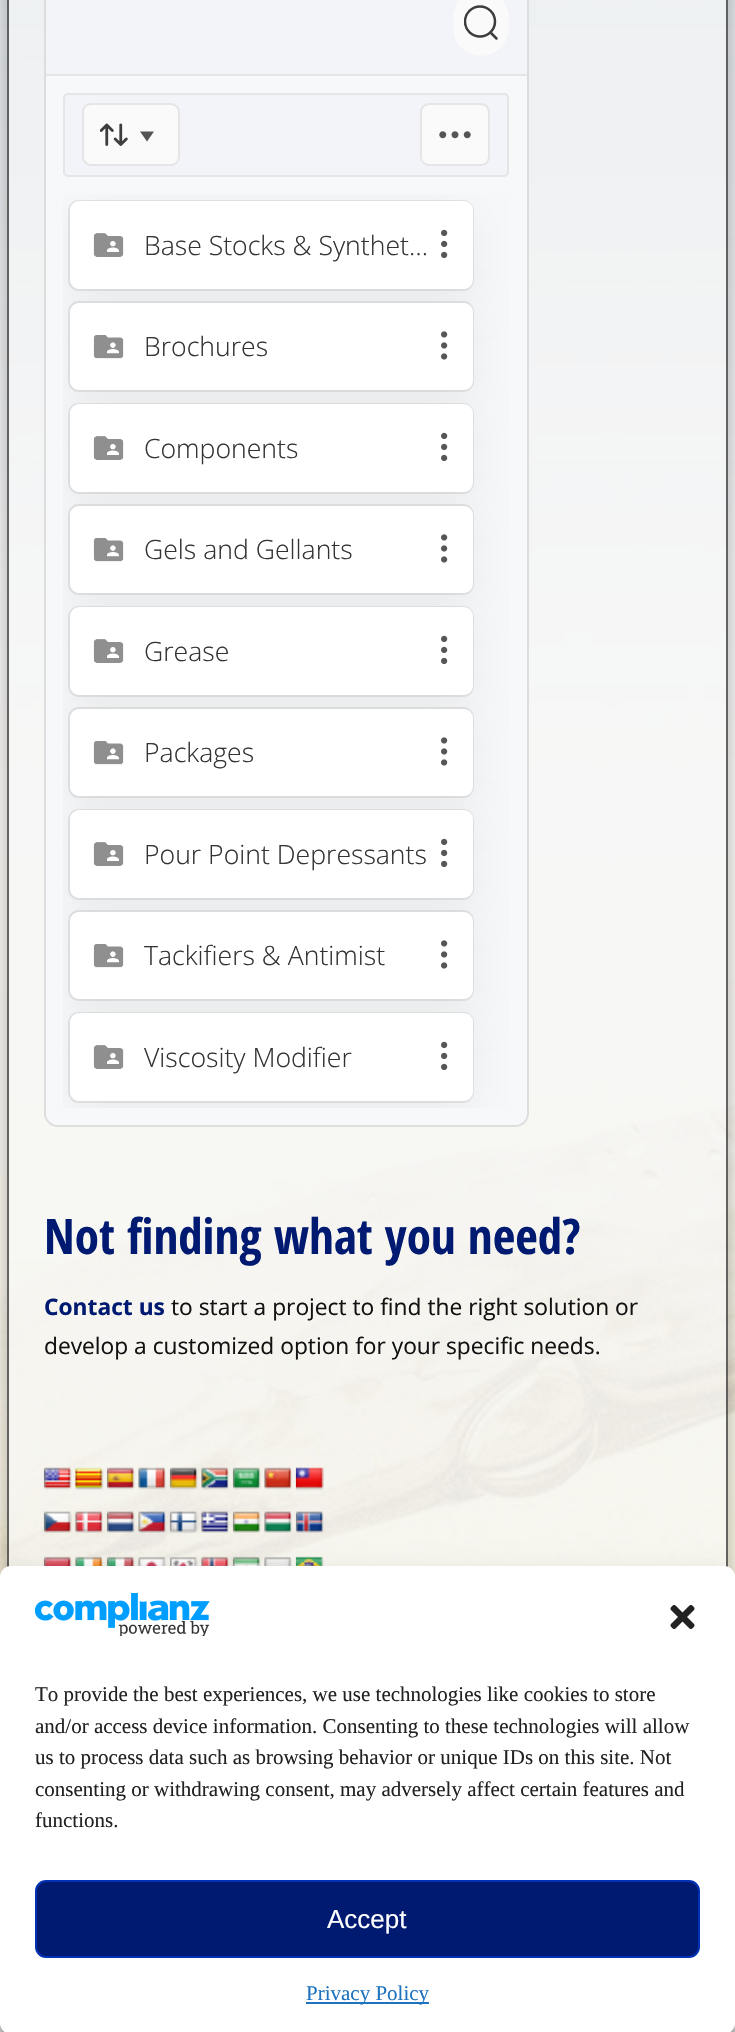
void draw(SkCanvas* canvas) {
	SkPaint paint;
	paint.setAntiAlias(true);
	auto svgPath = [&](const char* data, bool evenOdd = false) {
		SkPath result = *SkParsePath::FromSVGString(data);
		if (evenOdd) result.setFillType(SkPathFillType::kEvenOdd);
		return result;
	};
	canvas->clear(0xffffffff);
	canvas->drawImageRect(SkImages::DeferredFromEncodedData(SkData::MakeFromFileName("img1.png")), SkRect::MakeXYWH(0, 0, 735, 1577), SkSamplingOptions());
	canvas->save();
	canvas->clipPath(svgPath("M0 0H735V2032H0ZM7-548H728V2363H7Z", true), true);
	paint.setColor(0x2e000000);
	paint.setMaskFilter(SkMaskFilter::MakeBlur(kNormal_SkBlurStyle, 6));
	canvas->drawRect(SkRect::MakeXYWH(0, -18, 735, 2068), paint);
	paint.setMaskFilter(nullptr);
	canvas->restore();
	paint.setColor(0x99000000);
	canvas->drawRect(SkRect::MakeXYWH(726, 0, 2, 1567), paint);
	canvas->drawRect(SkRect::MakeXYWH(7, 0, 2, 1567), paint);
	paint.setStroke(true);
	paint.setStrokeWidth(2);
	paint.setColor(0xffdddddd);
	canvas->drawRoundRect(SkRect::MakeXYWH(45, -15, 483, 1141), 13, 13, paint);
	paint.setStroke(false);
	paint.setColor(0xfff2f4f9);
	canvas->drawRect(SkRect::MakeXYWH(46, 0, 481, 74), paint);
	paint.setColor(0xfff7f8fa);
	canvas->drawPath(svgPath("M46 75H527V1113C527 1119.5 521.5 1125 515 1125H58C51.5 1125 46 1119.5 46 1113Z"), paint);
	paint.setColor(0xffe5e5e5);
	canvas->drawRect(SkRect::MakeXYWH(46, 74, 481, 2), paint);
	paint.setColor(0xfffafafa);
	canvas->drawRoundRect(SkRect::MakeXYWH(453, -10, 56, 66), 28, 28, paint);
	canvas->save();
	canvas->clipRect(SkRect::MakeXYWH(464, 5, 35, 35));
	paint.setStroke(true);
	paint.setStrokeWidth(2.5);
	paint.setColor(0xff3d3d3d);
	canvas->drawCircle(480, 21.5, 15, paint);
	canvas->restore();
	paint.setStrokeCap(SkPaint::kRound_Cap);
	paint.setStrokeJoin(SkPaint::kRound_Join);
	canvas->drawPath(svgPath("M490.5 32.5L496.5 38.5"), paint);
	paint.setStrokeWidth(2);
	paint.setStrokeCap(SkPaint::kButt_Cap);
	paint.setStrokeJoin(SkPaint::kMiter_Join);
	paint.setColor(0xffe3e4e6);
	canvas->drawRoundRect(SkRect::MakeXYWH(69, 201, 404, 89), 10, 10, paint);
	canvas->save();
	canvas->clipRect(SkRect::MakeXYWH(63, 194, 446, 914));
	paint.setStroke(false);
	paint.setColor(0x0d000000);
	paint.setMaskFilter(SkMaskFilter::MakeBlur(kNormal_SkBlurStyle, 21));
	canvas->drawRoundRect(SkRect::MakeXYWH(70, 212, 403, 87), 9, 9, paint);
	paint.setMaskFilter(nullptr);
	canvas->restore();
	paint.setColor(0xfff2f4f9);
	canvas->drawRoundRect(SkRect::MakeXYWH(64, 94, 444, 82), 4, 4, paint);
	paint.setStroke(true);
	paint.setColor(0xffe5e5e5);
	canvas->drawRoundRect(SkRect::MakeXYWH(64, 94, 444, 82), 4, 4, paint);
	paint.setStroke(false);
	paint.setColor(0xfffafafa);
	canvas->drawRoundRect(SkRect::MakeXYWH(83, 104, 96, 61), 8, 8, paint);
	paint.setStroke(true);
	paint.setColor(0xffe5e5e5);
	canvas->drawRoundRect(SkRect::MakeXYWH(83, 104, 96, 61), 8, 8, paint);
	canvas->drawImageRect(SkImages::DeferredFromEncodedData(SkData::MakeFromFileName("img2.png")), SkRect::MakeXYWH(100, 123, 28, 23), SkSamplingOptions());
	paint.setStroke(false);
	paint.setColor(0xff555555);
	canvas->drawPath(svgPath("M154 131.5L147 141.5L140 131.5Z"), paint);
	paint.setColor(0xfffafafa);
	canvas->drawRoundRect(SkRect::MakeXYWH(421, 104, 68, 61), 8, 8, paint);
	paint.setStroke(true);
	paint.setColor(0xffe5e5e5);
	canvas->drawRoundRect(SkRect::MakeXYWH(421, 104, 68, 61), 8, 8, paint);
	canvas->drawImageRect(SkImages::DeferredFromEncodedData(SkData::MakeFromFileName("img3.png")), SkRect::MakeXYWH(439, 131, 32, 8), SkSamplingOptions());
	paint.setColor(0x14000000);
	canvas->drawRoundRect(SkRect::MakeXYWH(69, 302, 404, 89), 10, 10, paint);
	canvas->save();
	canvas->clipRect(SkRect::MakeXYWH(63, 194, 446, 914));
	paint.setStroke(false);
	paint.setColor(0x0d000000);
	paint.setMaskFilter(SkMaskFilter::MakeBlur(kNormal_SkBlurStyle, 21));
	canvas->drawRoundRect(SkRect::MakeXYWH(70, 313, 403, 88), 9, 9, paint);
	paint.setMaskFilter(nullptr);
	canvas->restore();
	paint.setColor(0xffffffff);
	canvas->drawRoundRect(SkRect::MakeXYWH(70, 201, 403, 88), 9, 9, paint);
	canvas->drawImageRect(SkImages::DeferredFromEncodedData(SkData::MakeFromFileName("img4.png")), SkRect::MakeXYWH(93, 233, 31, 24), SkSamplingOptions());
	SkFont f1(fontMgr->matchFamilyStyle("Open Sans", SkFontStyle(300, SkFontStyle::kNormal_Width, SkFontStyle::kUpright_Slant)), 26.6);
	f1.setSubpixel(true);
	paint.setColor(0xff333333);
	canvas->drawString("Base Stocks & Synthet…", 144, 255, f1, paint);
	canvas->drawImageRect(SkImages::DeferredFromEncodedData(SkData::MakeFromFileName("img5.png")), SkRect::MakeXYWH(441, 229, 7, 30), SkSamplingOptions());
	paint.setStroke(true);
	paint.setColor(0x14000000);
	canvas->drawRoundRect(SkRect::MakeXYWH(69, 404, 404, 89), 10, 10, paint);
	canvas->save();
	canvas->clipRect(SkRect::MakeXYWH(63, 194, 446, 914));
	paint.setStroke(false);
	paint.setColor(0x0d000000);
	paint.setMaskFilter(SkMaskFilter::MakeBlur(kNormal_SkBlurStyle, 21));
	canvas->drawRoundRect(SkRect::MakeXYWH(70, 415, 403, 87), 9, 9, paint);
	paint.setMaskFilter(nullptr);
	canvas->restore();
	paint.setColor(0xffffffff);
	canvas->drawRoundRect(SkRect::MakeXYWH(70, 303, 403, 87), 9, 9, paint);
	canvas->drawImageRect(SkImages::DeferredFromEncodedData(SkData::MakeFromFileName("img6.png")), SkRect::MakeXYWH(93, 335, 31, 24), SkSamplingOptions());
	paint.setColor(0xff333333);
	canvas->drawString("Brochures", 144, 356, f1, paint);
	canvas->drawImageRect(SkImages::DeferredFromEncodedData(SkData::MakeFromFileName("img7.png")), SkRect::MakeXYWH(441, 331, 7, 29), SkSamplingOptions());
	paint.setStroke(true);
	paint.setColor(0x14000000);
	canvas->drawRoundRect(SkRect::MakeXYWH(69, 505, 404, 89), 10, 10, paint);
	canvas->save();
	canvas->clipRect(SkRect::MakeXYWH(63, 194, 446, 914));
	paint.setStroke(false);
	paint.setColor(0x0d000000);
	paint.setMaskFilter(SkMaskFilter::MakeBlur(kNormal_SkBlurStyle, 21));
	canvas->drawRoundRect(SkRect::MakeXYWH(70, 516, 403, 88), 9, 9, paint);
	paint.setMaskFilter(nullptr);
	canvas->restore();
	paint.setColor(0xffffffff);
	canvas->drawRoundRect(SkRect::MakeXYWH(70, 404, 403, 88), 9, 9, paint);
	canvas->drawImageRect(SkImages::DeferredFromEncodedData(SkData::MakeFromFileName("img4.png")), SkRect::MakeXYWH(93, 436, 31, 24), SkSamplingOptions());
	paint.setColor(0xff333333);
	canvas->drawString("Components", 144, 458, f1, paint);
	canvas->drawImageRect(SkImages::DeferredFromEncodedData(SkData::MakeFromFileName("img5.png")), SkRect::MakeXYWH(441, 432, 7, 30), SkSamplingOptions());
	paint.setStroke(true);
	paint.setColor(0x14000000);
	canvas->drawRoundRect(SkRect::MakeXYWH(69, 607, 404, 89), 10, 10, paint);
	canvas->save();
	canvas->clipRect(SkRect::MakeXYWH(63, 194, 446, 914));
	paint.setStroke(false);
	paint.setColor(0x0d000000);
	paint.setMaskFilter(SkMaskFilter::MakeBlur(kNormal_SkBlurStyle, 21));
	canvas->drawRoundRect(SkRect::MakeXYWH(70, 618, 403, 87), 9, 9, paint);
	paint.setMaskFilter(nullptr);
	canvas->restore();
	paint.setColor(0xffffffff);
	canvas->drawRoundRect(SkRect::MakeXYWH(70, 506, 403, 87), 9, 9, paint);
	canvas->drawImageRect(SkImages::DeferredFromEncodedData(SkData::MakeFromFileName("img6.png")), SkRect::MakeXYWH(93, 538, 31, 24), SkSamplingOptions());
	paint.setColor(0xff333333);
	canvas->drawString("Gels and Gellants", 144, 559, f1, paint);
	canvas->drawImageRect(SkImages::DeferredFromEncodedData(SkData::MakeFromFileName("img7.png")), SkRect::MakeXYWH(441, 534, 7, 29), SkSamplingOptions());
	paint.setStroke(true);
	paint.setColor(0x14000000);
	canvas->drawRoundRect(SkRect::MakeXYWH(69, 708, 404, 89), 10, 10, paint);
	canvas->save();
	canvas->clipRect(SkRect::MakeXYWH(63, 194, 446, 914));
	paint.setStroke(false);
	paint.setColor(0x0d000000);
	paint.setMaskFilter(SkMaskFilter::MakeBlur(kNormal_SkBlurStyle, 21));
	canvas->drawRoundRect(SkRect::MakeXYWH(70, 719, 403, 88), 9, 9, paint);
	paint.setMaskFilter(nullptr);
	canvas->restore();
	paint.setColor(0xffffffff);
	canvas->drawRoundRect(SkRect::MakeXYWH(70, 607, 403, 88), 9, 9, paint);
	canvas->drawImageRect(SkImages::DeferredFromEncodedData(SkData::MakeFromFileName("img4.png")), SkRect::MakeXYWH(93, 639, 31, 24), SkSamplingOptions());
	paint.setColor(0xff333333);
	canvas->drawString("Grease", 144, 661, f1, paint);
	canvas->drawImageRect(SkImages::DeferredFromEncodedData(SkData::MakeFromFileName("img5.png")), SkRect::MakeXYWH(441, 635, 7, 30), SkSamplingOptions());
	paint.setStroke(true);
	paint.setColor(0x14000000);
	canvas->drawRoundRect(SkRect::MakeXYWH(69, 810, 404, 89), 10, 10, paint);
	canvas->save();
	canvas->clipRect(SkRect::MakeXYWH(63, 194, 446, 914));
	paint.setStroke(false);
	paint.setColor(0x0d000000);
	paint.setMaskFilter(SkMaskFilter::MakeBlur(kNormal_SkBlurStyle, 21));
	canvas->drawRoundRect(SkRect::MakeXYWH(70, 821, 403, 87), 9, 9, paint);
	paint.setMaskFilter(nullptr);
	canvas->restore();
	paint.setColor(0xffffffff);
	canvas->drawRoundRect(SkRect::MakeXYWH(70, 709, 403, 87), 9, 9, paint);
	canvas->drawImageRect(SkImages::DeferredFromEncodedData(SkData::MakeFromFileName("img6.png")), SkRect::MakeXYWH(93, 741, 31, 24), SkSamplingOptions());
	paint.setColor(0xff333333);
	canvas->drawString("Packages", 144, 762, f1, paint);
	canvas->drawImageRect(SkImages::DeferredFromEncodedData(SkData::MakeFromFileName("img7.png")), SkRect::MakeXYWH(441, 737, 7, 29), SkSamplingOptions());
	paint.setStroke(true);
	paint.setColor(0x14000000);
	canvas->drawRoundRect(SkRect::MakeXYWH(69, 911, 404, 89), 10, 10, paint);
	canvas->save();
	canvas->clipRect(SkRect::MakeXYWH(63, 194, 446, 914));
	paint.setStroke(false);
	paint.setColor(0x0d000000);
	paint.setMaskFilter(SkMaskFilter::MakeBlur(kNormal_SkBlurStyle, 21));
	canvas->drawRoundRect(SkRect::MakeXYWH(70, 922, 403, 88), 9, 9, paint);
	paint.setMaskFilter(nullptr);
	canvas->restore();
	paint.setColor(0xffffffff);
	canvas->drawRoundRect(SkRect::MakeXYWH(70, 810, 403, 88), 9, 9, paint);
	canvas->drawImageRect(SkImages::DeferredFromEncodedData(SkData::MakeFromFileName("img4.png")), SkRect::MakeXYWH(93, 842, 31, 24), SkSamplingOptions());
	paint.setColor(0xff333333);
	canvas->drawString("Pour Point Depressants", 144, 864, f1, paint);
	canvas->drawImageRect(SkImages::DeferredFromEncodedData(SkData::MakeFromFileName("img5.png")), SkRect::MakeXYWH(441, 838, 7, 30), SkSamplingOptions());
	paint.setStroke(true);
	paint.setColor(0x14000000);
	canvas->drawRoundRect(SkRect::MakeXYWH(69, 1013, 404, 89), 10, 10, paint);
	canvas->save();
	canvas->clipRect(SkRect::MakeXYWH(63, 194, 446, 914));
	paint.setStroke(false);
	paint.setColor(0x0d000000);
	paint.setMaskFilter(SkMaskFilter::MakeBlur(kNormal_SkBlurStyle, 21));
	canvas->drawRoundRect(SkRect::MakeXYWH(70, 1024, 403, 87), 9, 9, paint);
	paint.setMaskFilter(nullptr);
	canvas->restore();
	paint.setColor(0xffffffff);
	canvas->drawRoundRect(SkRect::MakeXYWH(70, 912, 403, 87), 9, 9, paint);
	canvas->drawImageRect(SkImages::DeferredFromEncodedData(SkData::MakeFromFileName("img6.png")), SkRect::MakeXYWH(93, 944, 31, 24), SkSamplingOptions());
	paint.setColor(0xff333333);
	canvas->drawString("Tackifiers & Antimist", 144, 965, f1, paint);
	canvas->drawImageRect(SkImages::DeferredFromEncodedData(SkData::MakeFromFileName("img7.png")), SkRect::MakeXYWH(441, 940, 7, 29), SkSamplingOptions());
	paint.setColor(0xffffffff);
	canvas->drawRoundRect(SkRect::MakeXYWH(70, 1013, 403, 88), 9, 9, paint);
	canvas->drawImageRect(SkImages::DeferredFromEncodedData(SkData::MakeFromFileName("img4.png")), SkRect::MakeXYWH(93, 1045, 31, 24), SkSamplingOptions());
	paint.setColor(0xff333333);
	canvas->drawString("Viscosity Modifier", 144, 1067, f1, paint);
	canvas->drawImageRect(SkImages::DeferredFromEncodedData(SkData::MakeFromFileName("img5.png")), SkRect::MakeXYWH(441, 1041, 7, 30), SkSamplingOptions());
	SkFont f2(fontMgr->matchFamilyStyle("Open Sans Condensed", SkFontStyle::Bold()), 49);
	f2.setSubpixel(true);
	paint.setColor(0xff001a71);
	canvas->drawString("Not finding what you need?", 44, 1254, f2, paint);
	SkFont f3(fontMgr->matchFamilyStyle("Open Sans", SkFontStyle::Bold()), 22.75);
	f3.setSubpixel(true);
	canvas->drawString("Contact us", 44, 1315, f3, paint);
	SkFont f4(fontMgr->matchFamilyStyle("Open Sans", SkFontStyle::Normal()), 22.75);
	f4.setSubpixel(true);
	paint.setColor(0xff121212);
	canvas->drawString("to start a project to find the right solution or", 171, 1315, f4, paint);
	canvas->drawString("develop a customized option for your specific needs.", 44, 1354, f4, paint);
	canvas->drawImageRect(SkImages::DeferredFromEncodedData(SkData::MakeFromFileName("img8.png")), SkRect::MakeXYWH(43, 1467, 29, 23), SkSamplingOptions());
	canvas->drawImageRect(SkImages::DeferredFromEncodedData(SkData::MakeFromFileName("img9.png")), SkRect::MakeXYWH(75, 1467, 29, 23), SkSamplingOptions());
	canvas->drawImageRect(SkImages::DeferredFromEncodedData(SkData::MakeFromFileName("img10.png")), SkRect::MakeXYWH(106, 1467, 29, 23), SkSamplingOptions());
	canvas->drawImageRect(SkImages::DeferredFromEncodedData(SkData::MakeFromFileName("img11.png")), SkRect::MakeXYWH(138, 1467, 28, 23), SkSamplingOptions());
	canvas->drawImageRect(SkImages::DeferredFromEncodedData(SkData::MakeFromFileName("img12.png")), SkRect::MakeXYWH(169, 1467, 29, 23), SkSamplingOptions());
	canvas->drawImageRect(SkImages::DeferredFromEncodedData(SkData::MakeFromFileName("img13.png")), SkRect::MakeXYWH(201, 1467, 28, 23), SkSamplingOptions());
	canvas->drawImageRect(SkImages::DeferredFromEncodedData(SkData::MakeFromFileName("img14.png")), SkRect::MakeXYWH(232, 1467, 29, 23), SkSamplingOptions());
	canvas->drawImageRect(SkImages::DeferredFromEncodedData(SkData::MakeFromFileName("img15.png")), SkRect::MakeXYWH(264, 1467, 28, 23), SkSamplingOptions());
	canvas->drawImageRect(SkImages::DeferredFromEncodedData(SkData::MakeFromFileName("img16.png")), SkRect::MakeXYWH(295, 1467, 29, 24), SkSamplingOptions());
	canvas->drawImageRect(SkImages::DeferredFromEncodedData(SkData::MakeFromFileName("img17.png")), SkRect::MakeXYWH(43, 1511, 29, 22), SkSamplingOptions());
	canvas->drawImageRect(SkImages::DeferredFromEncodedData(SkData::MakeFromFileName("img18.png")), SkRect::MakeXYWH(75, 1511, 28, 22), SkSamplingOptions());
	canvas->drawImageRect(SkImages::DeferredFromEncodedData(SkData::MakeFromFileName("img19.png")), SkRect::MakeXYWH(106, 1511, 29, 22), SkSamplingOptions());
	canvas->drawImageRect(SkImages::DeferredFromEncodedData(SkData::MakeFromFileName("img20.png")), SkRect::MakeXYWH(138, 1511, 28, 22), SkSamplingOptions());
	canvas->drawImageRect(SkImages::DeferredFromEncodedData(SkData::MakeFromFileName("img21.png")), SkRect::MakeXYWH(169, 1511, 29, 22), SkSamplingOptions());
	canvas->drawImageRect(SkImages::DeferredFromEncodedData(SkData::MakeFromFileName("img22.png")), SkRect::MakeXYWH(201, 1511, 28, 22), SkSamplingOptions());
	canvas->drawImageRect(SkImages::DeferredFromEncodedData(SkData::MakeFromFileName("img23.png")), SkRect::MakeXYWH(232, 1511, 29, 22), SkSamplingOptions());
	canvas->drawImageRect(SkImages::DeferredFromEncodedData(SkData::MakeFromFileName("img24.png")), SkRect::MakeXYWH(264, 1511, 28, 22), SkSamplingOptions());
	canvas->drawImageRect(SkImages::DeferredFromEncodedData(SkData::MakeFromFileName("img25.png")), SkRect::MakeXYWH(295, 1511, 29, 22), SkSamplingOptions());
	canvas->drawImageRect(SkImages::DeferredFromEncodedData(SkData::MakeFromFileName("img26.png")), SkRect::MakeXYWH(43, 1556, 29, 10), SkSamplingOptions());
	canvas->drawImageRect(SkImages::DeferredFromEncodedData(SkData::MakeFromFileName("img27.png")), SkRect::MakeXYWH(75, 1556, 28, 10), SkSamplingOptions());
	canvas->drawImageRect(SkImages::DeferredFromEncodedData(SkData::MakeFromFileName("img28.png")), SkRect::MakeXYWH(106, 1556, 29, 10), SkSamplingOptions());
	canvas->drawImageRect(SkImages::DeferredFromEncodedData(SkData::MakeFromFileName("img29.png")), SkRect::MakeXYWH(138, 1557, 28, 9), SkSamplingOptions());
	canvas->drawImageRect(SkImages::DeferredFromEncodedData(SkData::MakeFromFileName("img30.png")), SkRect::MakeXYWH(169, 1557, 29, 9), SkSamplingOptions());
	canvas->drawImageRect(SkImages::DeferredFromEncodedData(SkData::MakeFromFileName("img31.png")), SkRect::MakeXYWH(201, 1556, 28, 10), SkSamplingOptions());
	canvas->drawImageRect(SkImages::DeferredFromEncodedData(SkData::MakeFromFileName("img32.png")), SkRect::MakeXYWH(232, 1556, 29, 10), SkSamplingOptions());
	canvas->drawImageRect(SkImages::DeferredFromEncodedData(SkData::MakeFromFileName("img33.png")), SkRect::MakeXYWH(264, 1557, 28, 9), SkSamplingOptions());
	canvas->drawImageRect(SkImages::DeferredFromEncodedData(SkData::MakeFromFileName("img34.png")), SkRect::MakeXYWH(295, 1556, 29, 10), SkSamplingOptions());
	paint.setColor(0x3b000000);
	paint.setMaskFilter(SkMaskFilter::MakeBlur(kNormal_SkBlurStyle, 5));
	canvas->drawRoundRect(SkRect::MakeXYWH(0, 1577, 735, 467), 11, 11, paint);
	paint.setMaskFilter(nullptr);
	paint.setColor(0x30000000);
	paint.setMaskFilter(SkMaskFilter::MakeBlur(kNormal_SkBlurStyle, 17.5));
	canvas->drawRoundRect(SkRect::MakeXYWH(0, 1584, 735, 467), 11, 11, paint);
	paint.setMaskFilter(nullptr);
	paint.setColor(0xffffffff);
	canvas->drawRoundRect(SkRect::MakeXYWH(0, 1566, 735, 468), 11, 11, paint);
	canvas->drawImageRect(SkImages::DeferredFromEncodedData(SkData::MakeFromFileName("img35.png")), SkRect::MakeXYWH(35, 1593, 175, 43), SkSamplingOptions());
	canvas->drawImageRect(SkImages::DeferredFromEncodedData(SkData::MakeFromFileName("img36.png")), SkRect::MakeXYWH(670, 1605, 25, 24), SkSamplingOptions());
	SkFont f5(fontMgr->matchFamilyStyle("Liberation Serif", SkFontStyle::Normal()), 21);
	f5.setSubpixel(true);
	paint.setColor(0xff222222);
	canvas->drawString("To provide the best experiences, we use technologies like cookies to store", 35, 1701, f5, paint);
	canvas->drawString("and/or access device information. Consenting to these technologies will allow", 35, 1733, f5, paint);
	canvas->drawString("us to process data such as browsing behavior or unique IDs on this site. Not", 35, 1764, f5, paint);
	canvas->drawString("consenting or withdrawing consent, may adversely affect certain features and", 35, 1796, f5, paint);
	canvas->drawString("functions.", 35, 1827, f5, paint);
	paint.setColor(0xff001a71);
	canvas->drawRoundRect(SkRect::MakeXYWH(36, 1881, 663, 76), 10, 10, paint);
	paint.setStroke(true);
	paint.setColor(0xff0030b3);
	canvas->drawRoundRect(SkRect::MakeXYWH(36, 1881, 663, 76), 10, 10, paint);
	SkFont f6(fontMgr->matchFamilyStyle("Liberation Sans", SkFontStyle::Normal()), 26);
	f6.setSubpixel(true);
	paint.setStroke(false);
	paint.setColor(0xffffffff);
	canvas->drawString("Accept", 327, 1928, f6, paint);
	paint.setColor(0xff1e73be);
	canvas->drawRect(SkRect::MakeXYWH(306, 2002, 123, 2), paint);
	canvas->drawString("Privacy Policy", 306, 2000, f5, paint);
}
